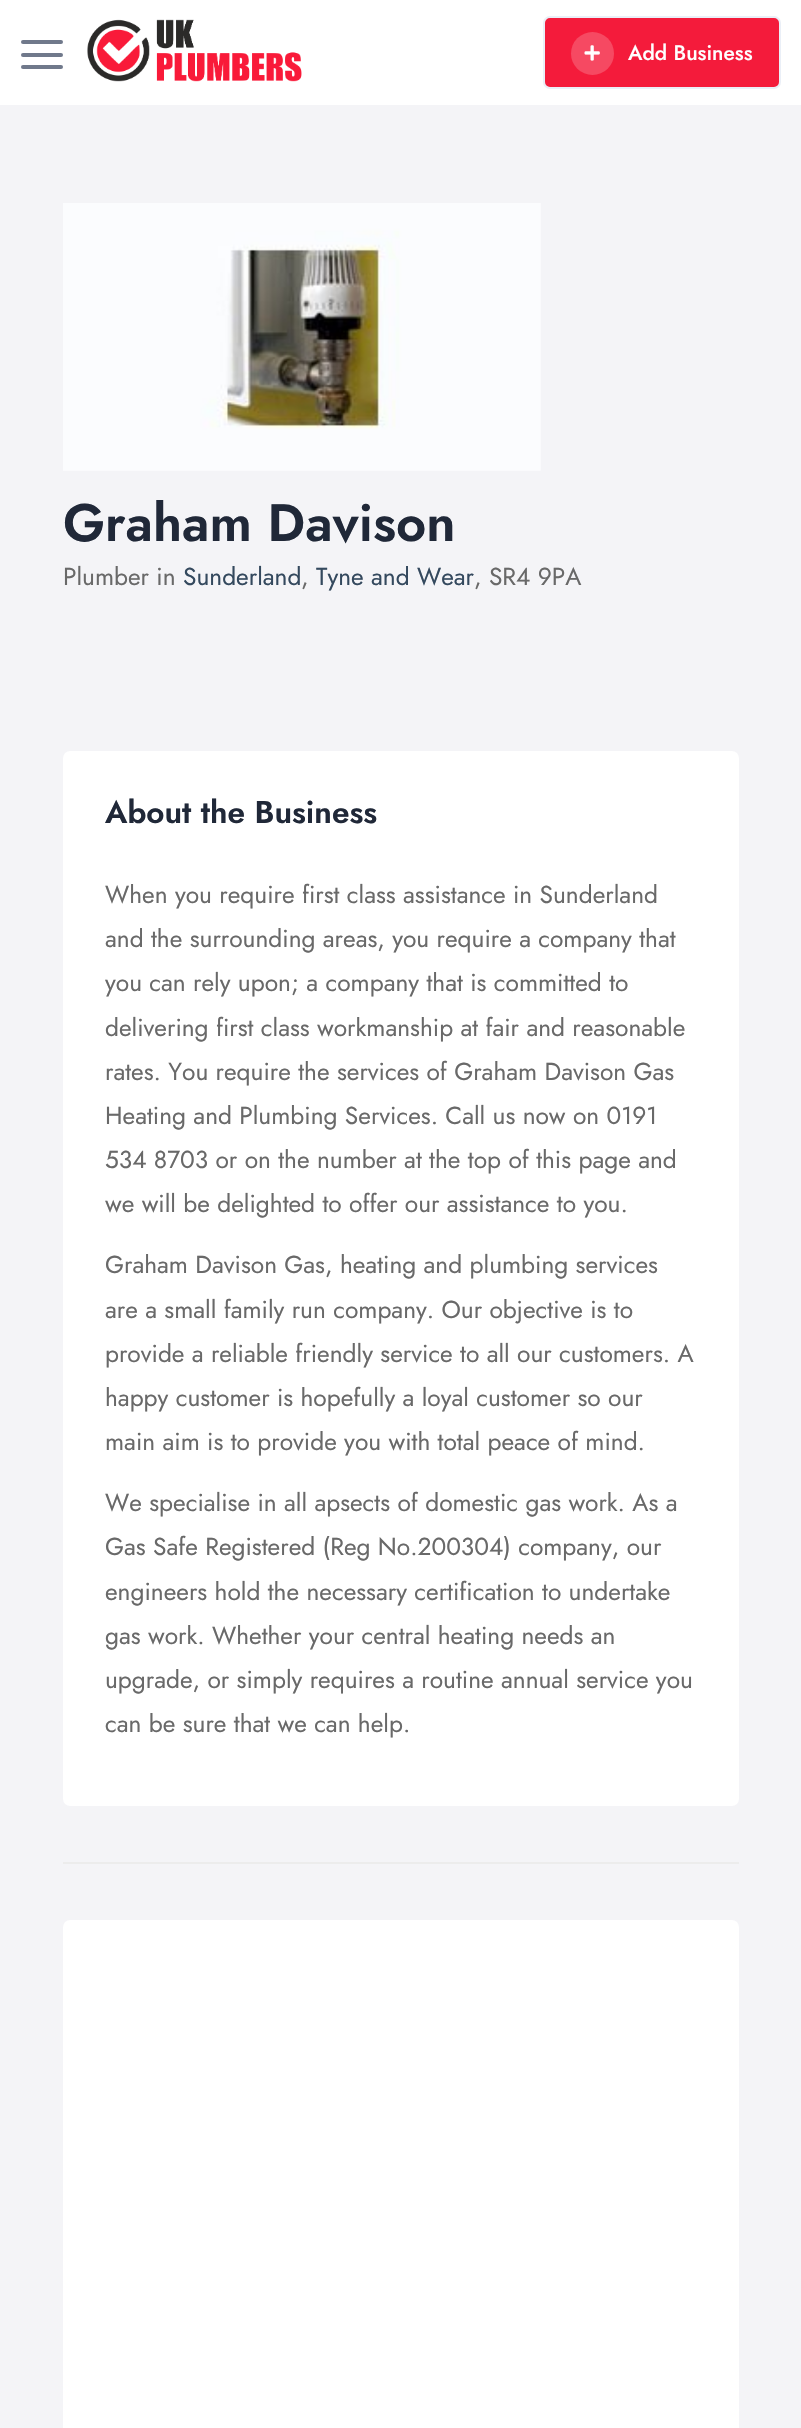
void draw(SkCanvas* canvas) {
	SkPaint paint;
	paint.setAntiAlias(true);
	canvas->clear(0xffffffff);
	paint.setColor(0xff70798b);
	canvas->drawRoundRect(SkRect::MakeXYWH(21, 65, 42, 4), 2, 2, paint);
	canvas->drawRoundRect(SkRect::MakeXYWH(21, 53, 42, 4), 2, 2, paint);
	canvas->drawRoundRect(SkRect::MakeXYWH(21, 40, 42, 4), 2, 2, paint);
	canvas->drawImageRect(SkImages::DeferredFromEncodedData(SkData::MakeFromFileName("img1.png")), SkRect::MakeXYWH(87, 19, 215, 63), SkSamplingOptions());
	paint.setColor(0xfff41b3b);
	canvas->drawRoundRect(SkRect::MakeXYWH(544, 17, 236, 71), 6, 6, paint);
	paint.setStroke(true);
	paint.setStrokeWidth(2);
	paint.setColor(0xffeaeff7);
	canvas->drawRoundRect(SkRect::MakeXYWH(544, 17, 236, 71), 6, 6, paint);
	paint.setStroke(false);
	paint.setColor(0xfff64962);
	canvas->drawCircle(592.5, 53.5, 21.5, paint);
	canvas->drawImageRect(SkImages::DeferredFromEncodedData(SkData::MakeFromFileName("img2.png")), SkRect::MakeXYWH(584, 45, 16, 16), SkSamplingOptions());
	SkFont f1(fontMgr->matchFamilyStyle("Jost", SkFontStyle(500, SkFontStyle::kNormal_Width, SkFontStyle::kUpright_Slant)), 21);
	f1.setSubpixel(true);
	paint.setColor(0xffffffff);
	canvas->drawString("Add Business", 628, 60, f1, paint);
	paint.setColor(0xfff4f4f7);
	canvas->drawRect(SkRect::MakeXYWH(0, 105, 801, 2323), paint);
	canvas->drawImageRect(SkImages::DeferredFromEncodedData(SkData::MakeFromFileName("img3.png")), SkRect::MakeXYWH(63, 203, 478, 268), SkSamplingOptions());
	SkFont f2(fontMgr->matchFamilyStyle("Jost", SkFontStyle(600, SkFontStyle::kNormal_Width, SkFontStyle::kUpright_Slant)), 52.5);
	f2.setSubpixel(true);
	paint.setColor(0xff202838);
	canvas->drawString("Graham Davison", 63, 541, f2, paint);
	SkFont f3(fontMgr->matchFamilyStyle("Jost", SkFontStyle::Normal()), 24.5);
	f3.setSubpixel(true);
	paint.setColor(0xff696969);
	canvas->drawString("Plumber in", 63, 585, f3, paint);
	paint.setColor(0xff34495e);
	canvas->drawString("Sunderland", 183, 585, f3, paint);
	paint.setColor(0xff696969);
	canvas->drawString(",", 301, 585, f3, paint);
	paint.setColor(0xff34495e);
	canvas->drawString("Tyne and Wear", 316, 585, f3, paint);
	paint.setColor(0xff696969);
	canvas->drawString(", SR4 9PA", 474, 585, f3, paint);
	paint.setColor(0xffffffff);
	canvas->drawRoundRect(SkRect::MakeXYWH(63, 751, 676, 1055), 7, 7, paint);
	SkFont f4(fontMgr->matchFamilyStyle("Jost", SkFontStyle(600, SkFontStyle::kNormal_Width, SkFontStyle::kUpright_Slant)), 31.5);
	f4.setSubpixel(true);
	paint.setColor(0xff202838);
	canvas->drawString("About the Business", 105, 823, f4, paint);
	paint.setColor(0xff696969);
	canvas->drawString("When you require first class assistance in Sunderland", 105, 903, f3, paint);
	canvas->drawString("and the surrounding areas, you require a company that", 105, 947, f3, paint);
	canvas->drawString("you can rely upon; a company that is committed to", 105, 991, f3, paint);
	canvas->drawString("delivering first class workmanship at fair and reasonable", 105, 1036, f3, paint);
	canvas->drawString("rates. You require the services of Graham Davison Gas", 105, 1080, f3, paint);
	canvas->drawString("Heating and Plumbing Services. Call us now on 0191", 105, 1124, f3, paint);
	canvas->drawString("534 8703 or on the number at the top of this page and", 105, 1168, f3, paint);
	canvas->drawString("we will be delighted to offer our assistance to you.", 105, 1212, f3, paint);
	canvas->drawString("Graham Davison Gas, heating and plumbing services", 105, 1273, f3, paint);
	canvas->drawString("are a small family run company. Our objective is to", 105, 1318, f3, paint);
	canvas->drawString("provide a reliable friendly service to all our customers. A", 105, 1362, f3, paint);
	canvas->drawString("happy customer is hopefully a loyal customer so our", 105, 1406, f3, paint);
	canvas->drawString("main aim is to provide you with total peace of mind.", 105, 1450, f3, paint);
	canvas->drawString("We specialise in all apsects of domestic gas work. As a", 105, 1511, f3, paint);
	canvas->drawString("Gas Safe Registered (Reg No.200304) company, our", 105, 1555, f3, paint);
	canvas->drawString("engineers hold the necessary certification to undertake", 105, 1600, f3, paint);
	canvas->drawString("gas work. Whether your central heating needs an", 105, 1644, f3, paint);
	canvas->drawString("upgrade, or simply requires a routine annual service you", 105, 1688, f3, paint);
	canvas->drawString("can be sure that we can help.", 105, 1732, f3, paint);
	paint.setColor(0xffececec);
	canvas->drawRect(SkRect::MakeXYWH(63, 1862, 676, 2), paint);
	paint.setColor(0xffffffff);
	canvas->drawRoundRect(SkRect::MakeXYWH(63, 1920, 676, 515), 7, 7, paint);
}
